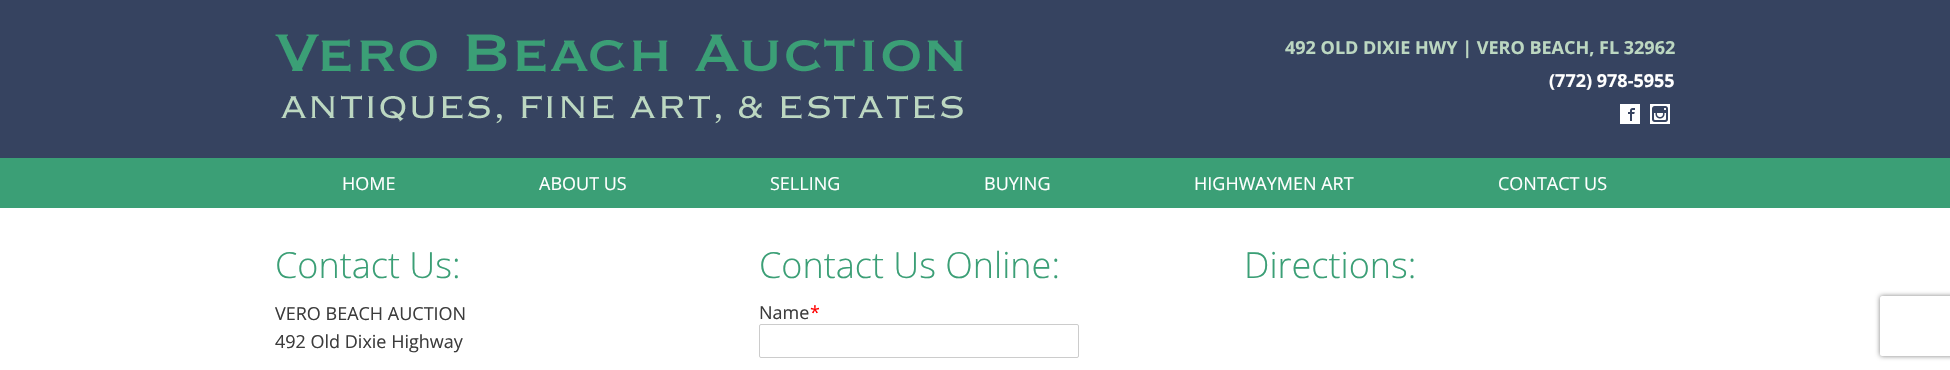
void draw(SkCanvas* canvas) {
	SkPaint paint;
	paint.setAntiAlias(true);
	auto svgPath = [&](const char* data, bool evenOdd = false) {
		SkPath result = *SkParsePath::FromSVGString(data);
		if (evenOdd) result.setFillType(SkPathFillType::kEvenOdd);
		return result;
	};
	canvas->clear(0xffffffff);
	paint.setColor(0xff364360);
	canvas->drawRect(SkRect::MakeXYWH(0, 0, 1950, 158), paint);
	canvas->drawImageRect(SkImages::DeferredFromEncodedData(SkData::MakeFromFileName("img1.png")), SkRect::MakeXYWH(275, 34, 688, 90), SkSamplingOptions());
	SkFont f1(fontMgr->matchFamilyStyle("Open Sans", SkFontStyle::Bold()), 18);
	f1.setSubpixel(true);
	paint.setColor(0xffbcd7c1);
	canvas->drawString("492 OLD DIXIE HWY | VERO BEACH, FL 32962", 1285, 54, f1, paint);
	paint.setColor(0xffffffff);
	canvas->drawString("(772) 978-5955", 1549, 87, f1, paint);
	canvas->drawRect(SkRect::MakeXYWH(1620, 104, 20, 20), paint);
	canvas->drawImageRect(SkImages::DeferredFromEncodedData(SkData::MakeFromFileName("img2.png")), SkRect::MakeXYWH(1628, 108, 7, 13), SkSamplingOptions());
	canvas->drawRect(SkRect::MakeXYWH(1650, 104, 20, 20), paint);
	canvas->drawImageRect(SkImages::DeferredFromEncodedData(SkData::MakeFromFileName("img3.png")), SkRect::MakeXYWH(1652, 106, 16, 16), SkSamplingOptions());
	paint.setColor(0xff3b9f76);
	canvas->drawRect(SkRect::MakeXYWH(0, 158, 1950, 50), paint);
	SkFont f2(fontMgr->matchFamilyStyle("Open Sans", SkFontStyle::Normal()), 18);
	f2.setSubpixel(true);
	paint.setColor(0xffffffff);
	canvas->drawString("HOME", 342, 190, f2, paint);
	canvas->drawString("ABOUT US", 539, 190, f2, paint);
	canvas->drawString("SELLING", 770, 190, f2, paint);
	canvas->drawString("BUYING", 984, 190, f2, paint);
	canvas->drawString("HIGHWAYMEN ART", 1194, 190, f2, paint);
	canvas->drawString("CONTACT US", 1498, 190, f2, paint);
	SkFont f3(fontMgr->matchFamilyStyle("Open Sans", SkFontStyle(300, SkFontStyle::kNormal_Width, SkFontStyle::kUpright_Slant)), 36);
	f3.setSubpixel(true);
	paint.setColor(0xff3b9f76);
	canvas->drawString("Contact Us:", 275, 278, f3, paint);
	paint.setColor(0xff3c3c3c);
	canvas->drawString("VERO BEACH AUCTION", 275, 320, f2, paint);
	canvas->drawString("492 Old Dixie Highway", 275, 348, f2, paint);
	paint.setColor(0xff3b9f76);
	canvas->drawString("Contact Us Online:", 759, 278, f3, paint);
	paint.setColor(0xff3c3c3c);
	canvas->drawString("Name", 759, 319, f2, paint);
	paint.setColor(0xffff0000);
	canvas->drawString("*", 810, 319, f2, paint);
	paint.setStroke(true);
	paint.setStrokeWidth(1);
	paint.setColor(0xffcccccc);
	canvas->drawRoundRect(SkRect::MakeXYWH(759.5, 324.5, 319, 33), 1.5, 1.5, paint);
	canvas->save();
	canvas->clipPath(svgPath("M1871 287H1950V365H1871ZM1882 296H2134C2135 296 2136 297 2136 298V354C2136 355 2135 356 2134 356H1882C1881 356 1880 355 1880 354V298C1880 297 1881 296 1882 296Z", true), true);
	paint.setStroke(false);
	paint.setColor(0xff808080);
	paint.setMaskFilter(SkMaskFilter::MakeBlur(kNormal_SkBlurStyle, 2.5));
	canvas->drawRoundRect(SkRect::MakeXYWH(1880, 296, 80, 60), 2, 2, paint);
	paint.setMaskFilter(nullptr);
	canvas->restore();
	paint.setColor(0xff3b9f76);
	canvas->drawString("Directions:", 1244, 278, f3, paint);
}
